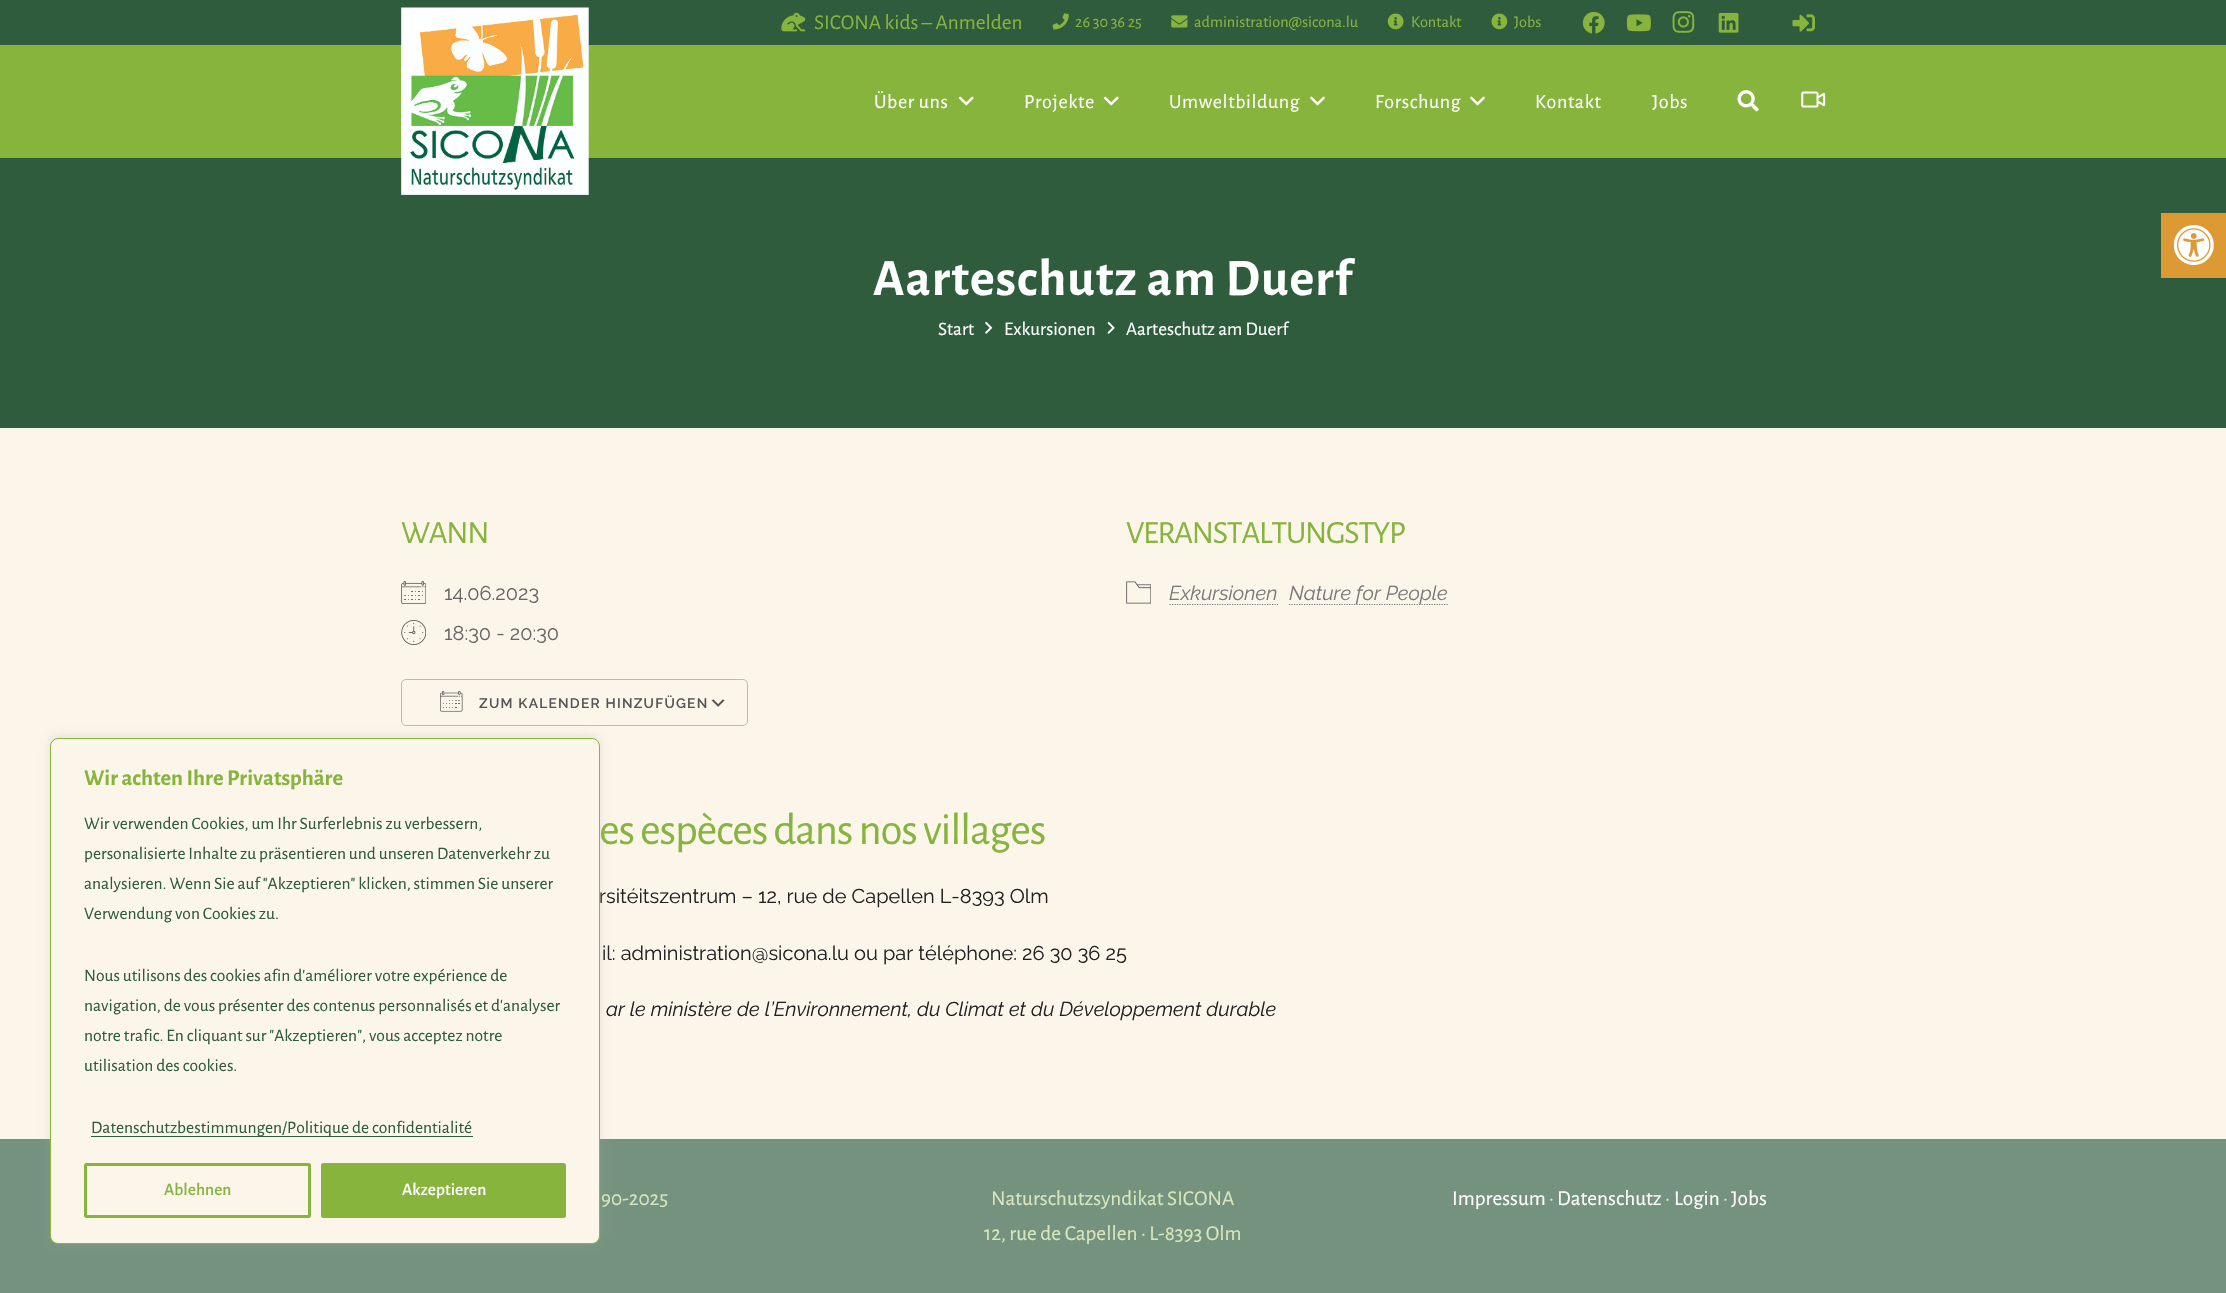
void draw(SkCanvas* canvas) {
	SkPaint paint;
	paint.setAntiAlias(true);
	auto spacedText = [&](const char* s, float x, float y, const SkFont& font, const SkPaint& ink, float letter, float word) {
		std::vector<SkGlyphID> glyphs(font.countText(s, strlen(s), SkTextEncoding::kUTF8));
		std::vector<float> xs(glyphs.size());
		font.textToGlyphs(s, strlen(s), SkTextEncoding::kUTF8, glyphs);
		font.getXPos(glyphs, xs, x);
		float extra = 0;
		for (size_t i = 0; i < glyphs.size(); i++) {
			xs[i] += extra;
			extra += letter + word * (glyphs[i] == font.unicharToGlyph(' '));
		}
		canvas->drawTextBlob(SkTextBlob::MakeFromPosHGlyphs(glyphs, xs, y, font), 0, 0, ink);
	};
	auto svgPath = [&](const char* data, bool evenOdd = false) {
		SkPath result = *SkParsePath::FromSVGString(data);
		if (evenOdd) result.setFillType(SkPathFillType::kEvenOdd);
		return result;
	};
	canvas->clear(0xfffcf6ea);
	paint.setColor(0xff2f5c3c);
	canvas->drawRect(SkRect::MakeXYWH(0, 0, 2226, 428), paint);
	canvas->drawImageRect(SkImages::DeferredFromEncodedData(SkData::MakeFromFileName("img1.png")), SkRect::MakeXYWH(781, 12, 25, 20), SkSamplingOptions());
	SkFont f1(fontMgr->matchFamilyStyle("Alegreya Sans", SkFontStyle::Normal()), 21.25);
	f1.setSubpixel(true);
	paint.setColor(0xff87b43d);
	canvas->drawString("SICONA kids – Anmelden", 814, 29, f1, paint);
	canvas->drawImageRect(SkImages::DeferredFromEncodedData(SkData::MakeFromFileName("img2.png")), SkRect::MakeXYWH(1052, 13, 17, 17), SkSamplingOptions());
	SkFont f2(fontMgr->matchFamilyStyle("Alegreya Sans", SkFontStyle::Normal()), 16.25);
	f2.setSubpixel(true);
	canvas->drawString("26 30 36 25", 1075, 27, f2, paint);
	canvas->drawImageRect(SkImages::DeferredFromEncodedData(SkData::MakeFromFileName("img3.png")), SkRect::MakeXYWH(1171, 15, 17, 13), SkSamplingOptions());
	canvas->drawString("administration@sicona.lu", 1194, 27, f2, paint);
	canvas->drawImageRect(SkImages::DeferredFromEncodedData(SkData::MakeFromFileName("img4.png")), SkRect::MakeXYWH(1387, 13, 17, 17), SkSamplingOptions());
	canvas->drawString("Kontakt", 1411, 27, f2, paint);
	canvas->drawImageRect(SkImages::DeferredFromEncodedData(SkData::MakeFromFileName("img5.png")), SkRect::MakeXYWH(1491, 13, 17, 17), SkSamplingOptions());
	canvas->drawString("Jobs", 1514, 27, f2, paint);
	canvas->drawImageRect(SkImages::DeferredFromEncodedData(SkData::MakeFromFileName("img6.png")), SkRect::MakeXYWH(1582, 11, 23, 23), SkSamplingOptions());
	canvas->drawImageRect(SkImages::DeferredFromEncodedData(SkData::MakeFromFileName("img7.png")), SkRect::MakeXYWH(1626, 14, 25, 18), SkSamplingOptions());
	canvas->drawImageRect(SkImages::DeferredFromEncodedData(SkData::MakeFromFileName("img8.png")), SkRect::MakeXYWH(1672, 11, 23, 22), SkSamplingOptions());
	canvas->drawImageRect(SkImages::DeferredFromEncodedData(SkData::MakeFromFileName("img9.png")), SkRect::MakeXYWH(1718, 13, 21, 20), SkSamplingOptions());
	canvas->drawImageRect(SkImages::DeferredFromEncodedData(SkData::MakeFromFileName("img10.png")), SkRect::MakeXYWH(1792, 14, 23, 18), SkSamplingOptions());
	paint.setColor(0xff2b5537);
	canvas->drawRect(SkRect::MakeXYWH(0, 158, 2226, 1), paint);
	paint.setColor(0xff87b43d);
	canvas->drawRect(SkRect::MakeXYWH(0, 45, 2226, 113), paint);
	canvas->drawImageRect(SkImages::DeferredFromEncodedData(SkData::MakeFromFileName("img11.png")), SkRect::MakeXYWH(401, 7, 188, 188), SkSamplingOptions());
	SkFont f3(fontMgr->matchFamilyStyle("Alegreya Sans", SkFontStyle::Normal()), 20);
	f3.setSubpixel(true);
	paint.setColor(0xffffffff);
	spacedText("Über uns", 874, 108, f3, paint, 0.6, 0);
	canvas->drawImageRect(SkImages::DeferredFromEncodedData(SkData::MakeFromFileName("img12.png")), SkRect::MakeXYWH(958, 96, 16, 10), SkSamplingOptions());
	spacedText("Projekte", 1024, 108, f3, paint, 0.6, 0);
	canvas->drawImageRect(SkImages::DeferredFromEncodedData(SkData::MakeFromFileName("img12.png")), SkRect::MakeXYWH(1103, 96, 16, 10), SkSamplingOptions());
	spacedText("Umweltbildung", 1169, 108, f3, paint, 0.6, 0);
	canvas->drawImageRect(SkImages::DeferredFromEncodedData(SkData::MakeFromFileName("img13.png")), SkRect::MakeXYWH(1310, 96, 15, 10), SkSamplingOptions());
	spacedText("Forschung", 1375, 108, f3, paint, 0.6, 0);
	canvas->drawImageRect(SkImages::DeferredFromEncodedData(SkData::MakeFromFileName("img13.png")), SkRect::MakeXYWH(1470, 96, 15, 10), SkSamplingOptions());
	spacedText("Kontakt", 1535, 108, f3, paint, 0.6, 0);
	spacedText("Jobs", 1652, 108, f3, paint, 0.6, 0);
	canvas->drawImageRect(SkImages::DeferredFromEncodedData(SkData::MakeFromFileName("img14.png")), SkRect::MakeXYWH(1737, 90, 22, 22), SkSamplingOptions());
	canvas->drawImageRect(SkImages::DeferredFromEncodedData(SkData::MakeFromFileName("img15.png")), SkRect::MakeXYWH(1801, 91, 25, 17), SkSamplingOptions());
	SkFont f4(fontMgr->matchFamilyStyle("Alegreya Sans", SkFontStyle::Bold()), 52.5);
	f4.setSubpixel(true);
	spacedText("Aarteschutz am Duerf", 873, 295, f4, paint, 1.05, 0);
	SkFont f5(fontMgr->matchFamilyStyle("Alegreya Sans", SkFontStyle::Normal()), 19.1);
	f5.setSubpixel(true);
	canvas->drawString("Start", 938, 335, f5, paint);
	canvas->drawImageRect(SkImages::DeferredFromEncodedData(SkData::MakeFromFileName("img16.png")), SkRect::MakeXYWH(985, 321, 8, 13), SkSamplingOptions());
	canvas->drawString("Exkursionen", 1004, 335, f5, paint);
	canvas->drawImageRect(SkImages::DeferredFromEncodedData(SkData::MakeFromFileName("img17.png")), SkRect::MakeXYWH(1107, 321, 8, 13), SkSamplingOptions());
	canvas->drawString("Aarteschutz am Duerf", 1126, 335, f5, paint);
	SkFont f6(fontMgr->matchFamilyStyle("Alegreya Sans", SkFontStyle::Normal()), 32.5);
	f6.setSubpixel(true);
	paint.setColor(0xff87b43d);
	spacedText("WANN", 401, 543, f6, paint, -1.25, 0);
	canvas->drawImageRect(SkImages::DeferredFromEncodedData(SkData::MakeFromFileName("img18.png")), SkRect::MakeXYWH(401, 581, 25, 23), SkSamplingOptions());
	SkFont f7(fontMgr->matchFamilyStyle("Raleway", SkFontStyle::Normal()), 20);
	f7.setSubpixel(true);
	paint.setColor(0xff666666);
	canvas->drawString("14.06.2023", 444, 600, f7, paint);
	canvas->drawImageRect(SkImages::DeferredFromEncodedData(SkData::MakeFromFileName("img19.png")), SkRect::MakeXYWH(401, 620, 25, 25), SkSamplingOptions());
	canvas->drawString("18:30 - 20:30", 444, 640, f7, paint);
	canvas->drawImageRect(SkImages::DeferredFromEncodedData(SkData::MakeFromFileName("img20.png")), SkRect::MakeXYWH(711, 699, 14, 8), SkSamplingOptions());
	paint.setStroke(true);
	paint.setStrokeWidth(1);
	paint.setColor(0xffbababa);
	canvas->drawRoundRect(SkRect::MakeXYWH(401.5, 679.5, 346, 46), 4.5, 4.5, paint);
	canvas->drawImageRect(SkImages::DeferredFromEncodedData(SkData::MakeFromFileName("img21.png")), SkRect::MakeXYWH(440, 690, 23, 22), SkSamplingOptions());
	SkFont f8(fontMgr->matchFamilyStyle("Raleway", SkFontStyle(600, SkFontStyle::kNormal_Width, SkFontStyle::kUpright_Slant)), 13.75);
	f8.setSubpixel(true);
	paint.setStroke(false);
	paint.setColor(0xff545454);
	spacedText("ZUM KALENDER HINZUFÜGEN", 479, 708, f8, paint, 1.25, 0);
	paint.setColor(0xff87b43d);
	spacedText("VERANSTALTUNGSTYP", 1126, 543, f6, paint, -1.25, 0);
	canvas->drawImageRect(SkImages::DeferredFromEncodedData(SkData::MakeFromFileName("img22.png")), SkRect::MakeXYWH(1126, 581, 25, 23), SkSamplingOptions());
	SkFont f9(fontMgr->matchFamilyStyle("Raleway", SkFontStyle::Italic()), 20);
	f9.setSubpixel(true);
	paint.setColor(0xff787878);
	canvas->drawString("Exkursionen", 1169, 600, f9, paint);
	paint.setStroke(true);
	paint.setStrokeWidth(1.2);
	paint.setPathEffect(SkDashPathEffect::Make({{1.25f, 1.25f}}, 0));
	canvas->drawPath(svgPath("M1169.5 604.5H1278"), paint);
	paint.setPathEffect(nullptr);
	paint.setPathEffect(SkDashPathEffect::Make({{1.25f, 1.25f}}, 0));
	canvas->drawPath(svgPath("M1289 604.5H1448"), paint);
	paint.setPathEffect(nullptr);
	paint.setStroke(false);
	canvas->drawString("Nature for People", 1289, 600, f9, paint);
	SkFont f10(fontMgr->matchFamilyStyle("Alegreya Sans", SkFontStyle::Normal()), 45);
	f10.setSubpixel(true);
	paint.setColor(0xff87b43d);
	spacedText("es espèces dans nos villages", 599, 844, f10, paint, -1.25, 0);
	paint.setColor(0xff212121);
	canvas->drawString("rsitéitszentrum – 12, rue de Capellen L-8393 Olm", 599, 903, f7, paint);
	canvas->drawString("il: administration@sicona.lu ou par téléphone: 26 30 36 25", 602, 960, f7, paint);
	canvas->drawString("ar le ministère de l’Environnement, du Climat et du Développement durable", 606, 1016, f9, paint);
	paint.setColor(0xffdd9933);
	canvas->drawRect(SkRect::MakeXYWH(2161, 213, 65, 65), paint);
	canvas->drawImageRect(SkImages::DeferredFromEncodedData(SkData::MakeFromFileName("img23.png")), SkRect::MakeXYWH(2174, 225, 40, 40), SkSamplingOptions());
	paint.setColor(0xff74927d);
	canvas->drawRect(SkRect::MakeXYWH(0, 1139, 2226, 154), paint);
	paint.setColor(0x4dacabab);
	paint.setMaskFilter(SkMaskFilter::MakeBlur(kNormal_SkBlurStyle, 6));
	canvas->drawRoundRect(SkRect::MakeXYWH(50, 736, 550, 507), 8, 8, paint);
	paint.setMaskFilter(nullptr);
	paint.setColor(0xfffcf6ea);
	canvas->drawRoundRect(SkRect::MakeXYWH(50.5, 738.5, 549, 505), 7.5, 7.5, paint);
	paint.setStroke(true);
	paint.setStrokeWidth(1);
	paint.setColor(0xff87b43d);
	canvas->drawRoundRect(SkRect::MakeXYWH(50.5, 738.5, 549, 505), 7.5, 7.5, paint);
	SkFont f11(fontMgr->matchFamilyStyle("Alegreya Sans", SkFontStyle::Bold()), 22.5);
	f11.setSubpixel(true);
	paint.setStroke(false);
	canvas->drawString("Wir achten Ihre Privatsphäre", 84, 785, f11, paint);
	SkFont f12(fontMgr->matchFamilyStyle("Alegreya Sans", SkFontStyle::Normal()), 17.5);
	f12.setSubpixel(true);
	paint.setColor(0xff2f5c3c);
	canvas->drawString("Wir verwenden Cookies, um Ihr Surferlebnis zu verbessern,", 84, 829, f12, paint);
	canvas->drawString("personalisierte Inhalte zu präsentieren und unseren Datenverkehr zu", 84, 859, f12, paint);
	canvas->drawString("analysieren. Wenn Sie auf \"Akzeptieren\" klicken, stimmen Sie unserer", 84, 889, f12, paint);
	canvas->drawString("Verwendung von Cookies zu.", 84, 919, f12, paint);
	canvas->drawString("Nous utilisons des cookies afin d'améliorer votre expérience de", 84, 981, f12, paint);
	canvas->drawString("navigation, de vous présenter des contenus personnalisés et d'analyser", 84, 1011, f12, paint);
	canvas->drawString("notre trafic. En cliquant sur \"Akzeptieren\", vous acceptez notre", 84, 1041, f12, paint);
	canvas->drawString("utilisation des cookies.", 84, 1071, f12, paint);
	canvas->drawRect(SkRect::MakeXYWH(91, 1136, 382, 1), paint);
	canvas->drawString("Datenschutzbestimmungen/Politique de confidentialité", 91, 1133, f12, paint);
	paint.setStroke(true);
	paint.setStrokeWidth(3);
	paint.setColor(0xff87b43d);
	canvas->drawRoundRect(SkRect::MakeXYWH(85.5, 1164.5, 224, 52), 1, 1, paint);
	SkFont f13(fontMgr->matchFamilyStyle("Alegreya Sans", SkFontStyle(500, SkFontStyle::kNormal_Width, SkFontStyle::kUpright_Slant)), 17.5);
	f13.setSubpixel(true);
	paint.setStroke(false);
	canvas->drawString("Ablehnen", 164, 1195, f13, paint);
	canvas->drawRoundRect(SkRect::MakeXYWH(322.5, 1164.5, 242, 52), 1, 1, paint);
	paint.setStroke(true);
	canvas->drawRoundRect(SkRect::MakeXYWH(322.5, 1164.5, 242, 52), 1, 1, paint);
	paint.setStroke(false);
	paint.setColor(0xffffffff);
	canvas->drawString("Akzeptieren", 402, 1195, f13, paint);
	paint.setColor(0xffd7e6be);
	canvas->drawString("90-2025", 601, 1205, f1, paint);
	canvas->drawString("Naturschutzsyndikat SICONA", 991, 1205, f1, paint);
	canvas->drawString("12, rue de Capellen · L-8393 Olm", 984, 1240, f1, paint);
	paint.setColor(0xffffffff);
	canvas->drawString("Impressum", 1452, 1205, f1, paint);
	paint.setColor(0xffd7e6be);
	canvas->drawString("·", 1549, 1205, f1, paint);
	paint.setColor(0xffffffff);
	canvas->drawString("Datenschutz", 1557, 1205, f1, paint);
	paint.setColor(0xffd7e6be);
	canvas->drawString("·", 1665, 1205, f1, paint);
	paint.setColor(0xffffffff);
	canvas->drawString("Login", 1674, 1205, f1, paint);
	paint.setColor(0xffd7e6be);
	canvas->drawString("·", 1723, 1205, f1, paint);
	paint.setColor(0xffffffff);
	canvas->drawString("Jobs", 1731, 1205, f1, paint);
}
